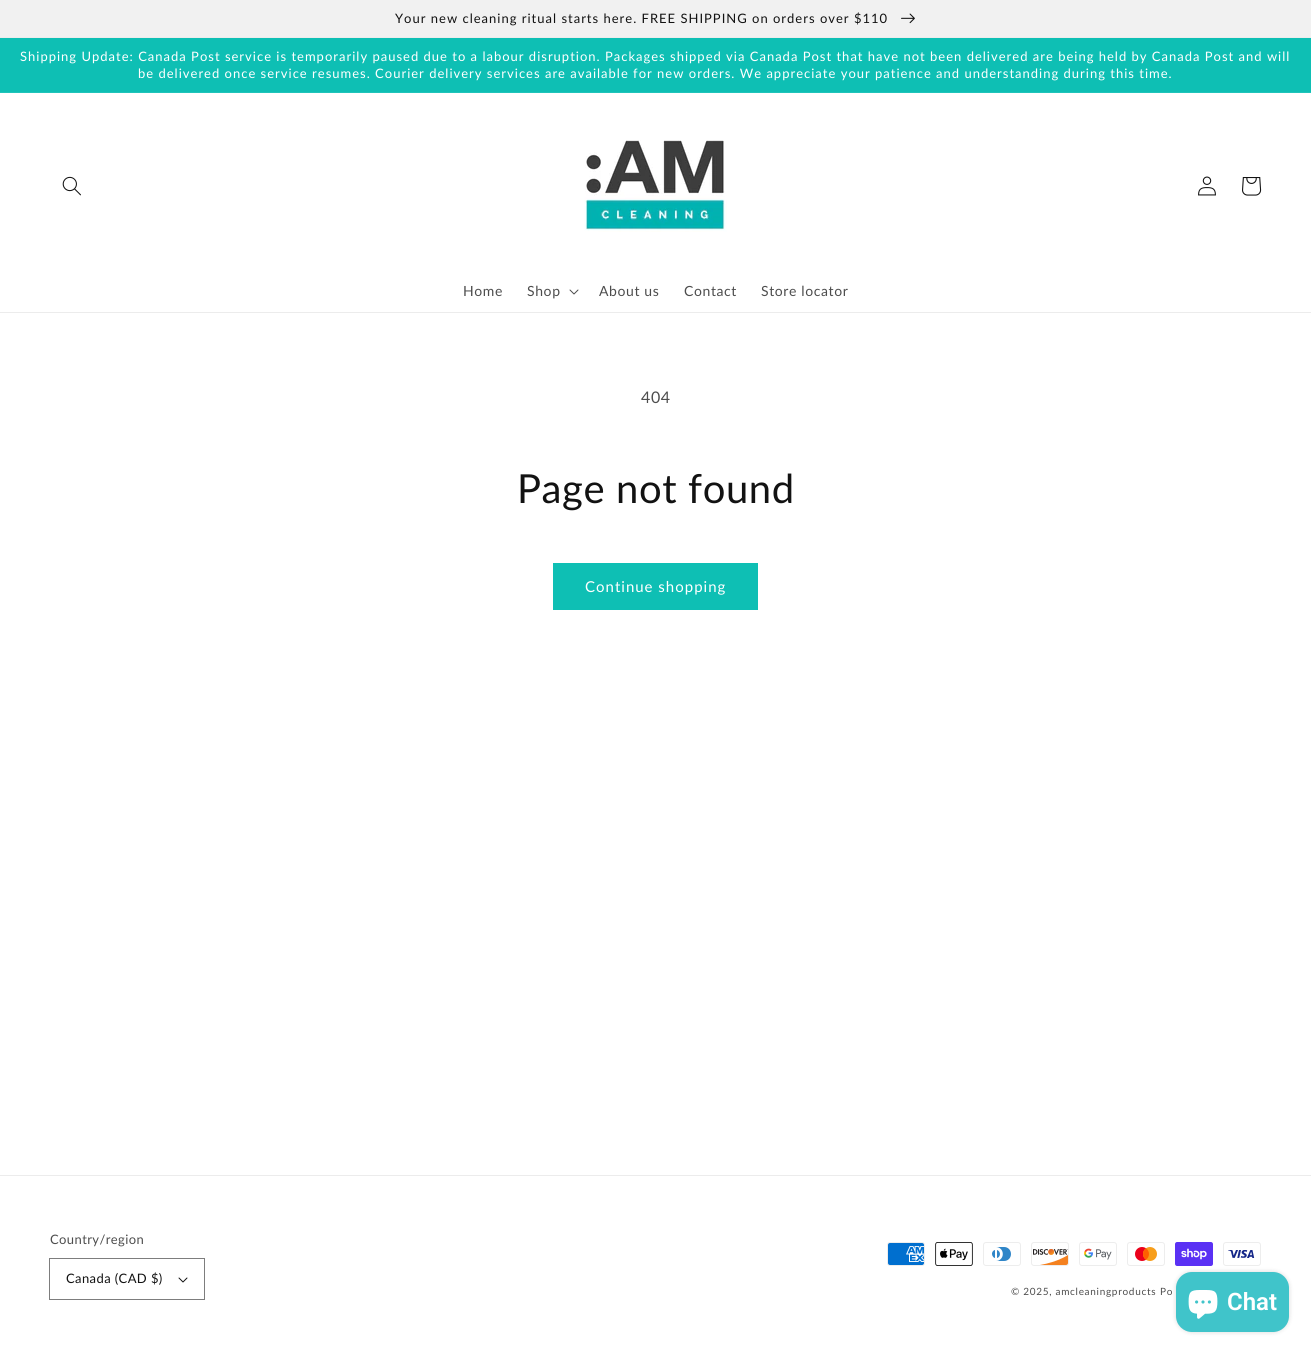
import math
import cairo


def use_color(cr, r, g, b):
  cr.set_source_rgb(r / 255, g / 255, b / 255)

def text(cr, x, y, s, family, size, color, bold=False, italic=False):
  cr.select_font_face(family, cairo.FONT_SLANT_ITALIC if italic else cairo.FONT_SLANT_NORMAL, cairo.FONT_WEIGHT_BOLD if bold else cairo.FONT_WEIGHT_NORMAL)
  cr.set_font_size(size)
  use_color(cr, *color)
  cr.move_to(x, y)
  cr.show_text(s)

def spaced_text(cr, x, y, s, letter, word):
  cr.move_to(x, y)
  for ch in s:
    cr.show_text(ch)
    cr.rel_move_to(letter + word * (ch == ' '), 0)

def box(cr, x, y, w, h, *color):
  use_color(cr, *color)
  cr.rectangle(x, y, w, h)
  cr.fill()

def round_rect(cr, x, y, w, h, r):
  cr.new_sub_path()
  for i, (u, v) in enumerate([(x + w - r, y + h - r), (x + r, y + h - r), (x + r, y + r), (x + w - r, y + r)]):
    cr.arc(u, v, r, i * math.pi / 2, (i + 1) * math.pi / 2)
  cr.close_path()

def shadow(cr, x, y, w, h, r, blur, alpha):
  cr.push_group_with_content(cairo.CONTENT_ALPHA)
  cr.set_operator(cairo.OPERATOR_SOURCE)
  for i in range(15, -16, -2):
    e = blur * i / 6
    if min(w, h) + 2 * e > 0:
      cr.set_source_rgba(0, 0, 0, alpha * math.erfc((i - 1) / 8.5) / 2)
      round_rect(cr, x - e, y - e, w + 2 * e, h + 2 * e, max(0, min(r + e + blur * .6, min(w, h) / 2 + e)))
      cr.fill()
  cr.mask(cr.pop_group())

def picture(cr, path, x, y, w, h):
  cr.save()
  cr.set_source_surface(cairo.ImageSurface.create_from_png(path), x, y)
  cr.rectangle(x, y, w, h)
  cr.fill()
  cr.restore()

def draw(cr):
  use_color(cr, 255, 255, 255)
  cr.paint()
  box(cr, 0, 37, 1311, 1, 236, 236, 236)
  box(cr, 0, 0, 1311, 37, 241, 241, 241)
  picture(cr, "img_01.png", 901, 13, 14, 11)
  box(cr, 0, 38, 1311, 54, 14, 191, 180)
  box(cr, 0, 92, 1311, 1, 33, 196, 186)
  box(cr, 0, 312, 1311, 1, 236, 236, 236)
  picture(cr, "img_02.png", 62, 176, 19, 20)
  picture(cr, "img_03.png", 584, 140, 143, 92)
  picture(cr, "img_04.png", 1198, 176, 18, 20)
  picture(cr, "img_05.png", 1242, 177, 20, 19)
  picture(cr, "img_06.png", 569, 289, 10, 6)
  cr.rectangle(553.5, 563.5, 204, 46)
  use_color(cr, 14, 191, 180)
  cr.set_line_width(1)
  cr.stroke()
  box(cr, 554, 564, 203, 45, 14, 191, 180)
  box(cr, 0, 1175, 1311, 1, 236, 236, 236)
  cr.rectangle(49.5, 1258.5, 155, 41)
  use_color(cr, 125, 125, 125)
  cr.stroke()
  picture(cr, "img_07.png", 178, 1277, 10, 6)
  picture(cr, "img_08.png", 887, 1242, 38, 24)
  picture(cr, "img_09.png", 935, 1242, 38, 24)
  picture(cr, "img_10.png", 983, 1242, 38, 24)
  picture(cr, "img_11.png", 1031, 1242, 38, 24)
  picture(cr, "img_12.png", 1079, 1242, 38, 24)
  picture(cr, "img_13.png", 1127, 1242, 38, 24)
  picture(cr, "img_14.png", 1175, 1242, 38, 24)
  picture(cr, "img_15.png", 1223, 1242, 38, 24)
  use_color(cr, 0, 0, 0)
  shadow(cr, 1176, 1272, 113, 60, 16, 2.5, 0.15)
  use_color(cr, 64, 196, 202)
  round_rect(cr, 1176, 1272, 113, 60, 16)
  cr.fill()
  picture(cr, "img_16.png", 1188, 1290, 30, 29)
  cr.select_font_face("Lato")
  cr.set_font_size(13)
  use_color(cr, 18, 18, 18)
  spaced_text(cr, 395, 23, "Your new cleaning ritual starts here. FREE SHIPPING on orders over $110", 1, 0)
  use_color(cr, 255, 255, 255)
  spaced_text(cr, 20, 61, "Shipping Update: Canada Post service is temporarily paused due to a labour disruption. Packages shipped via Canada Post that have not been delivered are being held by Canada Post and will", 1, 0)
  spaced_text(cr, 138, 78, "be delivered once service resumes. Courier delivery services are available for new orders. We appreciate your patience and understanding during this time.", 1, 0)
  cr.set_font_size(14)
  use_color(cr, 77, 77, 77)
  spaced_text(cr, 463, 296, "Home", 0.6, 0)
  spaced_text(cr, 527, 296, "Shop", 0.6, 0)
  spaced_text(cr, 599, 296, "About us", 0.6, 0)
  spaced_text(cr, 684, 296, "Contact", 0.6, 0)
  spaced_text(cr, 761, 296, "Store locator", 0.6, 0)
  cr.set_font_size(16)
  spaced_text(cr, 641, 403, "404", 0.6, 0)
  cr.set_font_size(40)
  use_color(cr, 18, 18, 18)
  spaced_text(cr, 517, 503, "Page not found", 0.6, 0)
  cr.set_font_size(15)
  use_color(cr, 255, 255, 255)
  spaced_text(cr, 585, 592, "Continue shopping", 1, 0)
  cr.set_font_size(13)
  use_color(cr, 77, 77, 77)
  spaced_text(cr, 50, 1244, "Country/region", 0.4, 0)
  use_color(cr, 18, 18, 18)
  spaced_text(cr, 66, 1283, "Canada (CAD $)", 0.4, 0)
  cr.set_font_size(10)
  use_color(cr, 77, 77, 77)
  spaced_text(cr, 1011, 1295, "© 2025, amcleaningproducts", 0.7, 0)
  spaced_text(cr, 1160, 1295, "Po", 0.7, 0)
  text(cr, 1227, 1310, "Chat", "Roboto SemiBold", 24, (255, 255, 255))


surface = cairo.ImageSurface(cairo.FORMAT_RGB24, 1311, 1353)
cr = cairo.Context(surface)
options = cairo.FontOptions()
options.set_hint_metrics(cairo.HINT_METRICS_OFF)
options.set_hint_style(cairo.HINT_STYLE_NONE)
cr.set_font_options(options)
cr.set_miter_limit(4)
draw(cr)
surface.write_to_png("out.png")
